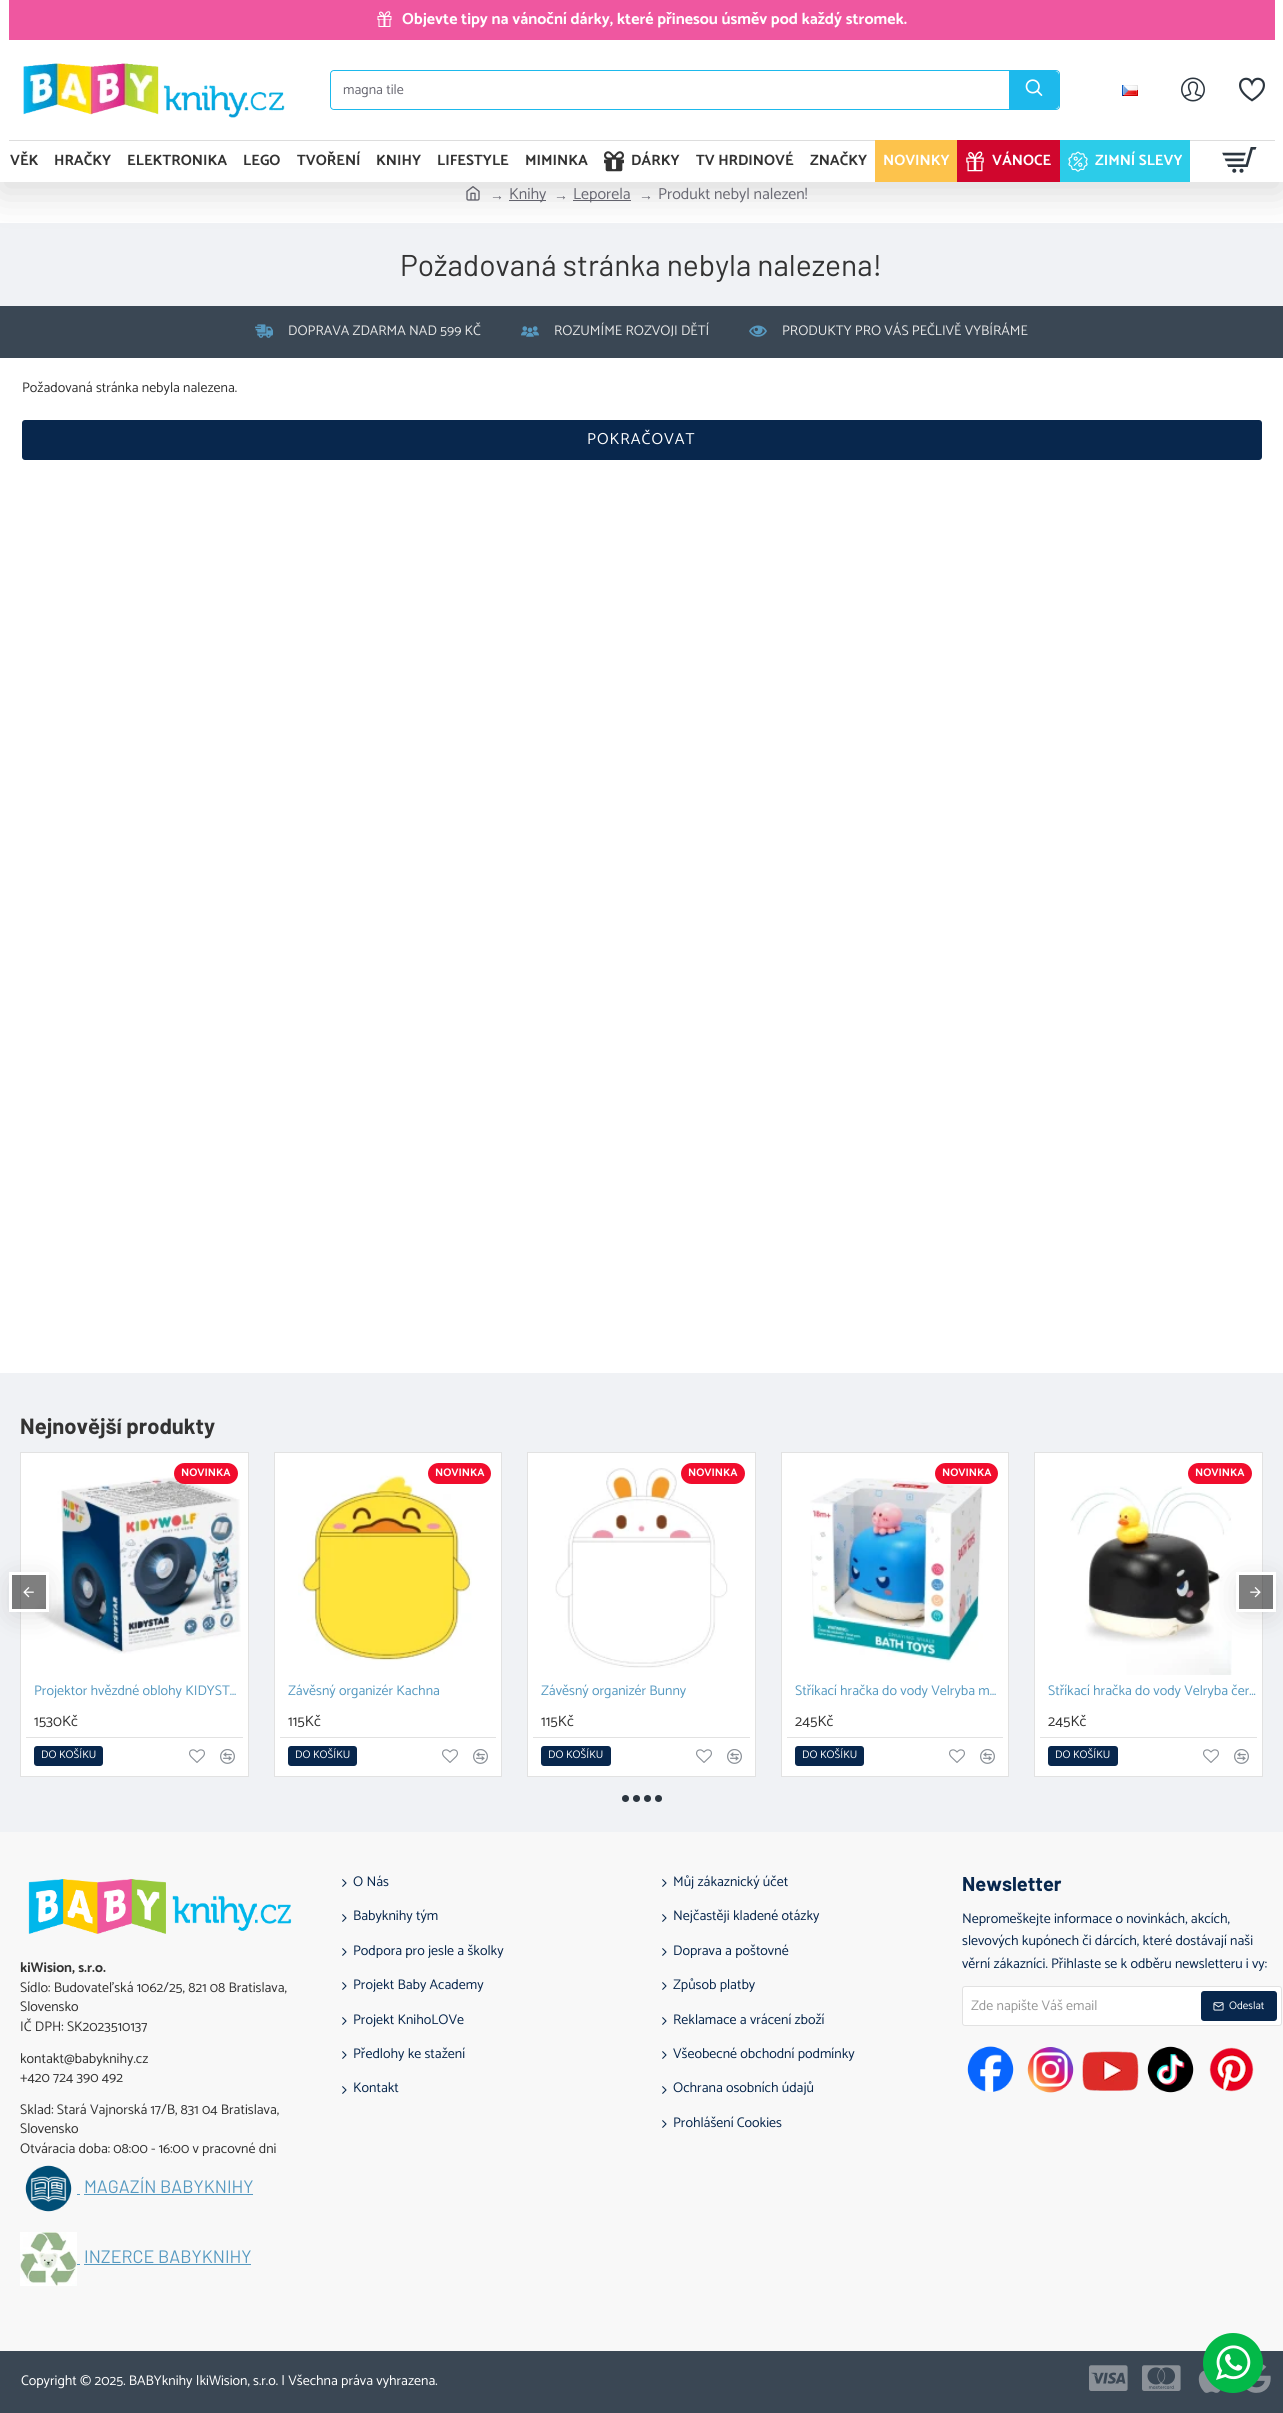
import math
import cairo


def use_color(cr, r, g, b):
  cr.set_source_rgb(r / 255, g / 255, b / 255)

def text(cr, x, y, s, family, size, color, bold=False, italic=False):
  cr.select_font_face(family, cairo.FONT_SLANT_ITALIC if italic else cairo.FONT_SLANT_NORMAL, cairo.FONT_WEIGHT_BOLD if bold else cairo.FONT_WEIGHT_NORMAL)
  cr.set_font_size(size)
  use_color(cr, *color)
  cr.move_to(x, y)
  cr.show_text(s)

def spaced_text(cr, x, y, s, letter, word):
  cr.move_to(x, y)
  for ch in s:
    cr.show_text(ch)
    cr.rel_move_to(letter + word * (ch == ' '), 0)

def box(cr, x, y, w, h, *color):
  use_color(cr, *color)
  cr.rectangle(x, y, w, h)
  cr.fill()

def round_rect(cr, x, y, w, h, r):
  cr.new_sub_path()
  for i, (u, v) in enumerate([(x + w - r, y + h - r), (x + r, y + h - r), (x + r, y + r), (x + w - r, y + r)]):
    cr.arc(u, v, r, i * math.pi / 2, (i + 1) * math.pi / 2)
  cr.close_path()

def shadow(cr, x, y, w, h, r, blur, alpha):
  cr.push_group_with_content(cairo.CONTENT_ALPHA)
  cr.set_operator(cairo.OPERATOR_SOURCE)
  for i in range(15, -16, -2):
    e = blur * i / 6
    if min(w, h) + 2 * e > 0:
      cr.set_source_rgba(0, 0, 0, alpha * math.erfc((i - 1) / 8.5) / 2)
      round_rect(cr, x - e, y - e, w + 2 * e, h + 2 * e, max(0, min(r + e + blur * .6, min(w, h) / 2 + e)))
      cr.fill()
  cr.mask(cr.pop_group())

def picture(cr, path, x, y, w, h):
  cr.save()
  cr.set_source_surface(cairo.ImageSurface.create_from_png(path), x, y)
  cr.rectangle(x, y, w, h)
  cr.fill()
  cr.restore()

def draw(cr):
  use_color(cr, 255, 255, 255)
  cr.paint()
  picture(cr, "img_11.png", 466, 186, 14, 15)
  box(cr, 509, 200, 37, 1, 105, 105, 115)
  box(cr, 573, 200, 58, 1, 105, 105, 115)
  box(cr, 0, 223, 1283, 83, 240, 242, 245)
  use_color(cr, 0, 0, 0)
  shadow(cr, 0, 10, 1283, 182, 0, 20, 0.15)
  box(cr, 0, 0, 1283, 182, 255, 255, 255)
  box(cr, 9, 0, 1266, 40, 239, 87, 160)
  picture(cr, "img_01.png", 377, 11, 15, 16)
  picture(cr, "img_02.png", 23, 63, 262, 55)
  round_rect(cr, 330.5, 70.5, 729, 39, 3.5)
  use_color(cr, 29, 185, 236)
  cr.set_line_width(1)
  cr.stroke()
  use_color(cr, 255, 255, 255)
  round_rect(cr, 331, 71, 678, 38, 4)
  cr.fill()
  use_color(cr, 29, 185, 236)
  cr.new_path()
  cr.move_to(1009, 71)
  cr.line_to(1055, 71)
  cr.curve_to(1057, 71, 1059, 73, 1059, 75)
  cr.line_to(1059, 105)
  cr.curve_to(1059, 107, 1057, 109, 1055, 109)
  cr.line_to(1009, 109)
  cr.close_path()
  cr.fill()
  picture(cr, "img_03.png", 1025, 79, 18, 17)
  picture(cr, "img_04.png", 1122, 85, 16, 11)
  picture(cr, "img_05.png", 1181, 77, 24, 25)
  picture(cr, "img_06.png", 1239, 77, 26, 25)
  box(cr, 9, 140, 1266, 1, 221, 221, 221)
  picture(cr, "img_07.png", 604, 151, 20, 21)
  box(cr, 875, 140, 82, 42, 253, 195, 76)
  box(cr, 957, 140, 103, 42, 208, 6, 45)
  picture(cr, "img_08.png", 966, 151, 18, 21)
  box(cr, 1060, 140, 130, 42, 44, 204, 233)
  picture(cr, "img_09.png", 1068, 151, 20, 21)
  picture(cr, "img_10.png", 1222, 147, 35, 26)
  box(cr, 0, 306, 1283, 52, 58, 71, 84)
  picture(cr, "img_12.png", 255, 324, 18, 14)
  picture(cr, "img_13.png", 521, 326, 18, 11)
  picture(cr, "img_14.png", 749, 325, 18, 12)
  use_color(cr, 8, 39, 77)
  round_rect(cr, 22, 420, 1240, 40, 3)
  cr.fill()
  box(cr, 0, 1373, 1283, 459, 240, 242, 245)
  use_color(cr, 255, 255, 255)
  cr.rectangle(20.5, 1452.5, 228, 324)
  cr.fill_preserve()
  use_color(cr, 226, 226, 226)
  cr.stroke()
  picture(cr, "img_15.png", 35, 1477, 206, 177)
  use_color(cr, 241, 13, 45)
  round_rect(cr, 174, 1463, 64, 21, 10.5)
  cr.fill()
  box(cr, 26, 1737, 217, 1, 226, 226, 226)
  use_color(cr, 8, 39, 77)
  round_rect(cr, 34, 1746, 69, 20, 3)
  cr.fill()
  picture(cr, "img_16.png", 189, 1749, 16, 14)
  picture(cr, "img_17.png", 220, 1749, 15, 15)
  use_color(cr, 255, 255, 255)
  cr.rectangle(274.5, 1452.5, 227, 324)
  cr.fill_preserve()
  use_color(cr, 226, 226, 226)
  cr.stroke()
  picture(cr, "img_18.png", 298, 1475, 174, 186)
  use_color(cr, 241, 13, 45)
  round_rect(cr, 428, 1463, 63, 21, 10.5)
  cr.fill()
  box(cr, 280, 1737, 216, 1, 226, 226, 226)
  use_color(cr, 8, 39, 77)
  round_rect(cr, 288, 1746, 69, 20, 3)
  cr.fill()
  picture(cr, "img_16.png", 442, 1749, 16, 14)
  picture(cr, "img_17.png", 473, 1749, 15, 15)
  use_color(cr, 255, 255, 255)
  cr.rectangle(527.5, 1452.5, 228, 324)
  cr.fill_preserve()
  use_color(cr, 226, 226, 226)
  cr.stroke()
  picture(cr, "img_19.png", 555, 1468, 173, 200)
  use_color(cr, 241, 13, 45)
  round_rect(cr, 681, 1463, 64, 21, 10.5)
  cr.fill()
  box(cr, 533, 1737, 217, 1, 226, 226, 226)
  use_color(cr, 8, 39, 77)
  round_rect(cr, 541, 1746, 70, 20, 3)
  cr.fill()
  picture(cr, "img_16.png", 696, 1749, 16, 14)
  picture(cr, "img_17.png", 727, 1749, 15, 15)
  use_color(cr, 255, 255, 255)
  cr.rectangle(781.5, 1452.5, 227, 324)
  cr.fill_preserve()
  use_color(cr, 226, 226, 226)
  cr.stroke()
  picture(cr, "img_20.png", 810, 1478, 173, 185)
  use_color(cr, 241, 13, 45)
  round_rect(cr, 935, 1463, 63, 21, 10.5)
  cr.fill()
  box(cr, 787, 1737, 216, 1, 226, 226, 226)
  use_color(cr, 8, 39, 77)
  round_rect(cr, 795, 1746, 69, 20, 3)
  cr.fill()
  picture(cr, "img_16.png", 949, 1749, 16, 14)
  picture(cr, "img_17.png", 980, 1749, 15, 15)
  use_color(cr, 255, 255, 255)
  cr.rectangle(1034.5, 1452.5, 228, 324)
  cr.fill_preserve()
  use_color(cr, 226, 226, 226)
  cr.stroke()
  use_color(cr, 241, 13, 45)
  round_rect(cr, 1188, 1463, 64, 21, 10.5)
  cr.fill()
  picture(cr, "img_21.png", 1070, 1486, 162, 189)
  box(cr, 1040, 1737, 217, 1, 226, 226, 226)
  use_color(cr, 8, 39, 77)
  round_rect(cr, 1048, 1746, 70, 20, 3)
  cr.fill()
  picture(cr, "img_16.png", 1203, 1749, 16, 14)
  picture(cr, "img_17.png", 1234, 1749, 15, 15)
  cr.save()
  cr.set_fill_rule(cairo.FILL_RULE_EVEN_ODD)
  cr.new_path()
  cr.move_to(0, 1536)
  cr.line_to(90, 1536)
  cr.line_to(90, 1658)
  cr.line_to(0, 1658)
  cr.close_path()
  cr.move_to(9, 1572)
  cr.line_to(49, 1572)
  cr.line_to(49, 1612)
  cr.line_to(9, 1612)
  cr.close_path()
  cr.clip()
  use_color(cr, 0, 0, 0)
  shadow(cr, 14, 1582, 30, 30, 0, 15, 0.15)
  cr.restore()
  cr.set_source_rgba(0, 0, 0, 0.5)
  cr.rectangle(10.5, 1573.5, 37, 37)
  cr.fill_preserve()
  use_color(cr, 255, 255, 255)
  cr.set_line_width(3)
  cr.stroke()
  picture(cr, "img_22.png", 23, 1587, 11, 11)
  cr.save()
  cr.set_fill_rule(cairo.FILL_RULE_EVEN_ODD)
  cr.new_path()
  cr.move_to(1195, 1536)
  cr.line_to(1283, 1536)
  cr.line_to(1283, 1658)
  cr.line_to(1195, 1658)
  cr.close_path()
  cr.move_to(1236, 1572)
  cr.line_to(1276, 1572)
  cr.line_to(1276, 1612)
  cr.line_to(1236, 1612)
  cr.close_path()
  cr.clip()
  use_color(cr, 0, 0, 0)
  shadow(cr, 1241, 1582, 30, 30, 0, 15, 0.15)
  cr.restore()
  cr.set_source_rgba(0, 0, 0, 0.5)
  cr.rectangle(1237.5, 1573.5, 37, 37)
  cr.fill_preserve()
  use_color(cr, 255, 255, 255)
  cr.stroke()
  picture(cr, "img_23.png", 1250, 1587, 11, 11)
  use_color(cr, 44, 54, 64)
  cr.arc(625.5, 1798.5, 3.5, 0, 2 * math.pi)
  cr.fill()
  cr.arc(636.5, 1798.5, 3.5, 0, 2 * math.pi)
  cr.fill()
  cr.arc(647.5, 1798.5, 3.5, 0, 2 * math.pi)
  cr.fill()
  cr.arc(658.5, 1798.5, 3.5, 0, 2 * math.pi)
  cr.fill()
  box(cr, 0, 1832, 1283, 519, 248, 248, 248)
  picture(cr, "img_24.png", 342, 1879, 5, 8)
  picture(cr, "img_24.png", 342, 1914, 5, 8)
  picture(cr, "img_24.png", 342, 1948, 5, 8)
  picture(cr, "img_24.png", 342, 1982, 5, 8)
  picture(cr, "img_24.png", 342, 2017, 5, 8)
  picture(cr, "img_24.png", 342, 2051, 5, 8)
  picture(cr, "img_24.png", 342, 2086, 5, 8)
  picture(cr, "img_24.png", 662, 1879, 5, 8)
  picture(cr, "img_24.png", 662, 1914, 5, 8)
  picture(cr, "img_24.png", 662, 1948, 5, 8)
  picture(cr, "img_24.png", 662, 1982, 5, 8)
  picture(cr, "img_24.png", 662, 2017, 5, 8)
  picture(cr, "img_24.png", 662, 2051, 5, 8)
  picture(cr, "img_24.png", 662, 2086, 5, 8)
  picture(cr, "img_24.png", 662, 2120, 5, 8)
  use_color(cr, 255, 255, 255)
  round_rect(cr, 962.5, 1986.5, 319, 39, 2.5)
  cr.fill_preserve()
  use_color(cr, 226, 226, 226)
  cr.set_line_width(1)
  cr.stroke()
  use_color(cr, 8, 39, 77)
  round_rect(cr, 1201, 1991, 76, 30, 3)
  cr.fill()
  picture(cr, "img_25.png", 1213, 2002, 11, 9)
  picture(cr, "img_26.png", 967, 2046, 47, 46)
  picture(cr, "img_27.png", 1027, 2047, 47, 46)
  picture(cr, "img_28.png", 1082, 2051, 57, 40)
  picture(cr, "img_29.png", 1147, 2046, 47, 47)
  picture(cr, "img_30.png", 1209, 2047, 45, 45)
  picture(cr, "img_31.png", 28, 1879, 264, 55)
  picture(cr, "img_32.png", 25, 2165, 47, 47)
  box(cr, 77, 2194, 3, 1, 87, 154, 193)
  box(cr, 84, 2194, 169, 1, 87, 154, 193)
  picture(cr, "img_33.png", 20, 2232, 57, 54)
  box(cr, 77, 2264, 3, 1, 87, 154, 193)
  box(cr, 84, 2264, 167, 1, 87, 154, 193)
  box(cr, 0, 2351, 1283, 62, 58, 71, 84)
  picture(cr, "img_34.png", 1089, 2365, 39, 26)
  picture(cr, "img_35.png", 1142, 2365, 39, 26)
  picture(cr, "img_36.png", 1198, 2370, 23, 23)
  picture(cr, "img_37.png", 1246, 2364, 25, 29)
  use_color(cr, 3, 185, 72)
  cr.arc(1233, 2363, 30, 0, 2 * math.pi)
  cr.fill()
  picture(cr, "img_38.png", 1216, 2345, 35, 35)
  text(cr, 402, 24, "Objevte tipy na vánoční dárky, které přinesou úsměv pod každý stromek.", "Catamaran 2 Thin", 16, (255, 255, 255))
  text(cr, 343, 94, "magna tile", "Catamaran Thin", 14, (105, 105, 115))
  text(cr, 10, 165, "VĚK", "Catamaran 2 Thin", 15, (51, 51, 51))
  text(cr, 54, 165, "HRAČKY", "Catamaran 2 Thin", 15, (51, 51, 51))
  text(cr, 127, 165, "ELEKTRONIKA", "Catamaran 2 Thin", 15, (51, 51, 51))
  text(cr, 243, 165, "LEGO", "Catamaran 2 Thin", 15, (51, 51, 51))
  text(cr, 297, 165, "TVOŘENÍ", "Catamaran 2 Thin", 15, (51, 51, 51))
  text(cr, 376, 165, "KNIHY", "Catamaran 2 Thin", 15, (51, 51, 51))
  text(cr, 437, 165, "LIFESTYLE", "Catamaran 2 Thin", 15, (51, 51, 51))
  text(cr, 525, 165, "MIMINKA", "Catamaran 2 Thin", 15, (51, 51, 51))
  text(cr, 631, 165, "DÁRKY", "Catamaran 2 Thin", 15, (51, 51, 51))
  text(cr, 696, 165, "TV HRDINOVÉ", "Catamaran 2 Thin", 15, (51, 51, 51))
  text(cr, 810, 165, "ZNAČKY", "Catamaran 2 Thin", 15, (51, 51, 51))
  text(cr, 883, 165, "NOVINKY", "Catamaran 2 Thin", 15, (255, 255, 255))
  text(cr, 992, 165, "VÁNOCE", "Catamaran 2 Thin", 15, (255, 255, 255))
  text(cr, 1095, 165, "ZIMNÍ SLEVY", "Catamaran 2 Thin", 15, (255, 255, 255))
  text(cr, 490, 200, "→", "Liberation Serif", 14, (105, 105, 115))
  text(cr, 509, 199, "Knihy", "Catamaran Thin", 16, (105, 105, 115))
  text(cr, 554, 200, "→", "Liberation Serif", 14, (105, 105, 115))
  text(cr, 573, 199, "Leporela", "Catamaran Thin", 16, (105, 105, 115))
  text(cr, 639, 200, "→", "Liberation Serif", 14, (105, 105, 115))
  text(cr, 658, 199, "Produkt nebyl nalezen!", "Catamaran Thin", 16, (105, 105, 115))
  text(cr, 400, 276, "Požadovaná stránka nebyla nalezena!", "Barlow", 30, (51, 51, 51))
  text(cr, 288, 335, "DOPRAVA ZDARMA NAD 599 KČ", "Catamaran Thin", 14, (230, 230, 230))
  text(cr, 554, 335, "ROZUMÍME ROZVOJI DĚTÍ", "Catamaran Thin", 14, (230, 230, 230))
  text(cr, 782, 335, "PRODUKTY PRO VÁS PEČLIVĚ VYBÍRÁME", "Catamaran Thin", 14, (230, 230, 230))
  text(cr, 22, 392, "Požadovaná stránka nebyla nalezena.", "Catamaran Thin", 14, (51, 51, 51))
  cr.set_font_size(16)
  use_color(cr, 255, 255, 255)
  spaced_text(cr, 587, 444, "POKRAČOVAT", 1, 0)
  text(cr, 20, 1434, "Nejnovější produkty", "Barlow", 22, (51, 51, 51), bold=True)
  text(cr, 181, 1476, "NOVINKA", "Catamaran 2 Thin", 11, (255, 255, 255))
  text(cr, 34, 1695, "Projektor hvězdné oblohy KIDYST…", "Catamaran Thin", 14, (87, 154, 193))
  text(cr, 34, 1726, "1530Kč", "Catamaran Thin", 15, (51, 51, 51))
  text(cr, 41, 1758, "DO KOŠÍKU", "Catamaran Thin", 11, (255, 255, 255))
  text(cr, 435, 1476, "NOVINKA", "Catamaran 2 Thin", 11, (255, 255, 255))
  text(cr, 288, 1695, "Závěsný organizér Kachna", "Catamaran Thin", 14, (87, 154, 193))
  text(cr, 288, 1726, "115Kč", "Catamaran Thin", 15, (51, 51, 51))
  text(cr, 295, 1758, "DO KOŠÍKU", "Catamaran Thin", 11, (255, 255, 255))
  text(cr, 688, 1476, "NOVINKA", "Catamaran 2 Thin", 11, (255, 255, 255))
  text(cr, 541, 1695, "Závěsný organizér Bunny", "Catamaran Thin", 14, (87, 154, 193))
  text(cr, 541, 1726, "115Kč", "Catamaran Thin", 15, (51, 51, 51))
  text(cr, 548, 1758, "DO KOŠÍKU", "Catamaran Thin", 11, (255, 255, 255))
  text(cr, 942, 1476, "NOVINKA", "Catamaran 2 Thin", 11, (255, 255, 255))
  text(cr, 795, 1695, "Stříkací hračka do vody Velryba m…", "Catamaran Thin", 14, (87, 154, 193))
  text(cr, 795, 1726, "245Kč", "Catamaran Thin", 15, (51, 51, 51))
  text(cr, 802, 1758, "DO KOŠÍKU", "Catamaran Thin", 11, (255, 255, 255))
  text(cr, 1195, 1476, "NOVINKA", "Catamaran 2 Thin", 11, (255, 255, 255))
  text(cr, 1048, 1695, "Stříkací hračka do vody Velryba čer…", "Catamaran Thin", 14, (87, 154, 193))
  text(cr, 1048, 1726, "245Kč", "Catamaran Thin", 15, (51, 51, 51))
  text(cr, 1055, 1758, "DO KOŠÍKU", "Catamaran Thin", 11, (255, 255, 255))
  text(cr, 353, 1886, "O Nás", "Catamaran Thin", 14, (8, 39, 77))
  text(cr, 353, 1920, "Babyknihy tým", "Catamaran Thin", 14, (8, 39, 77))
  text(cr, 353, 1955, "Podpora pro jesle a školky", "Catamaran Thin", 14, (8, 39, 77))
  text(cr, 353, 1989, "Projekt Baby Academy", "Catamaran Thin", 14, (8, 39, 77))
  text(cr, 353, 2024, "Projekt KnihoLOVe", "Catamaran Thin", 14, (8, 39, 77))
  text(cr, 353, 2058, "Předlohy ke stažení", "Catamaran Thin", 14, (8, 39, 77))
  text(cr, 353, 2092, "Kontakt", "Catamaran Thin", 14, (8, 39, 77))
  text(cr, 673, 1886, "Můj zákaznický účet", "Catamaran Thin", 14, (8, 39, 77))
  text(cr, 673, 1920, "Nejčastěji kladené otázky", "Catamaran Thin", 14, (8, 39, 77))
  text(cr, 673, 1955, "Doprava a poštovné", "Catamaran Thin", 14, (8, 39, 77))
  text(cr, 673, 1989, "Způsob platby", "Catamaran Thin", 14, (8, 39, 77))
  text(cr, 673, 2024, "Reklamace a vrácení zboží", "Catamaran Thin", 14, (8, 39, 77))
  text(cr, 673, 2058, "Všeobecné obchodní podmínky", "Catamaran Thin", 14, (8, 39, 77))
  text(cr, 673, 2092, "Ochrana osobních údajů", "Catamaran Thin", 14, (8, 39, 77))
  text(cr, 673, 2127, "Prohlášení Cookies", "Catamaran Thin", 14, (8, 39, 77))
  text(cr, 962, 1891, "Newsletter", "Barlow", 20, (8, 39, 77), bold=True)
  text(cr, 962, 1923, "Nepromeškejte informace o novinkách, akcích,", "Catamaran Thin", 14, (8, 39, 77))
  text(cr, 962, 1945, "slevových kupónech či dárcích, které dostávají naši", "Catamaran Thin", 14, (8, 39, 77))
  text(cr, 962, 1968, "věrní zákazníci. Přihlaste se k odběru newsletteru i vy:", "Catamaran Thin", 14, (8, 39, 77))
  text(cr, 971, 2010, "Zde napište Váš email", "Catamaran Thin", 14, (153, 153, 153))
  text(cr, 1229, 2009, "Odeslat", "Catamaran Thin", 11, (255, 255, 255))
  text(cr, 20, 1972, "kiWision, s.r.o.", "Catamaran 2 Thin", 14, (51, 51, 51))
  text(cr, 20, 1992, "Sídlo: Budovateľská 1062/25, 821 08 Bratislava,", "Catamaran Thin", 14, (51, 51, 51))
  text(cr, 20, 2011, "Slovensko", "Catamaran Thin", 14, (51, 51, 51))
  text(cr, 20, 2031, "IČ DPH: SK2023510137", "Catamaran Thin", 14, (51, 51, 51))
  text(cr, 20, 2063, "kontakt@babyknihy.cz", "Catamaran Thin", 14, (51, 51, 51))
  text(cr, 20, 2082, "+420 724 390 492", "Catamaran Thin", 14, (51, 51, 51))
  text(cr, 20, 2114, "Sklad: Stará Vajnorská 17/B, 831 04 Bratislava,", "Catamaran Thin", 14, (51, 51, 51))
  text(cr, 20, 2133, "Slovensko", "Catamaran Thin", 14, (51, 51, 51))
  text(cr, 20, 2153, "Otváracia doba: 08:00 - 16:00 v pracovné dni", "Catamaran Thin", 14, (51, 51, 51))
  text(cr, 84, 2193, "MAGAZÍN BABYKNIHY", "Barlow", 18, (87, 154, 193))
  text(cr, 84, 2263, "INZERCE BABYKNIHY", "Barlow", 18, (87, 154, 193))
  text(cr, 21, 2385, "Copyright © 2025. BABYknihy |kiWision, s.r.o. | Všechna práva vyhrazena.", "Catamaran Thin", 14, (255, 255, 255))


surface = cairo.ImageSurface(cairo.FORMAT_RGB24, 1283, 2413)
cr = cairo.Context(surface)
options = cairo.FontOptions()
options.set_hint_metrics(cairo.HINT_METRICS_OFF)
options.set_hint_style(cairo.HINT_STYLE_NONE)
cr.set_font_options(options)
cr.set_miter_limit(4)
draw(cr)
surface.write_to_png("out.png")
